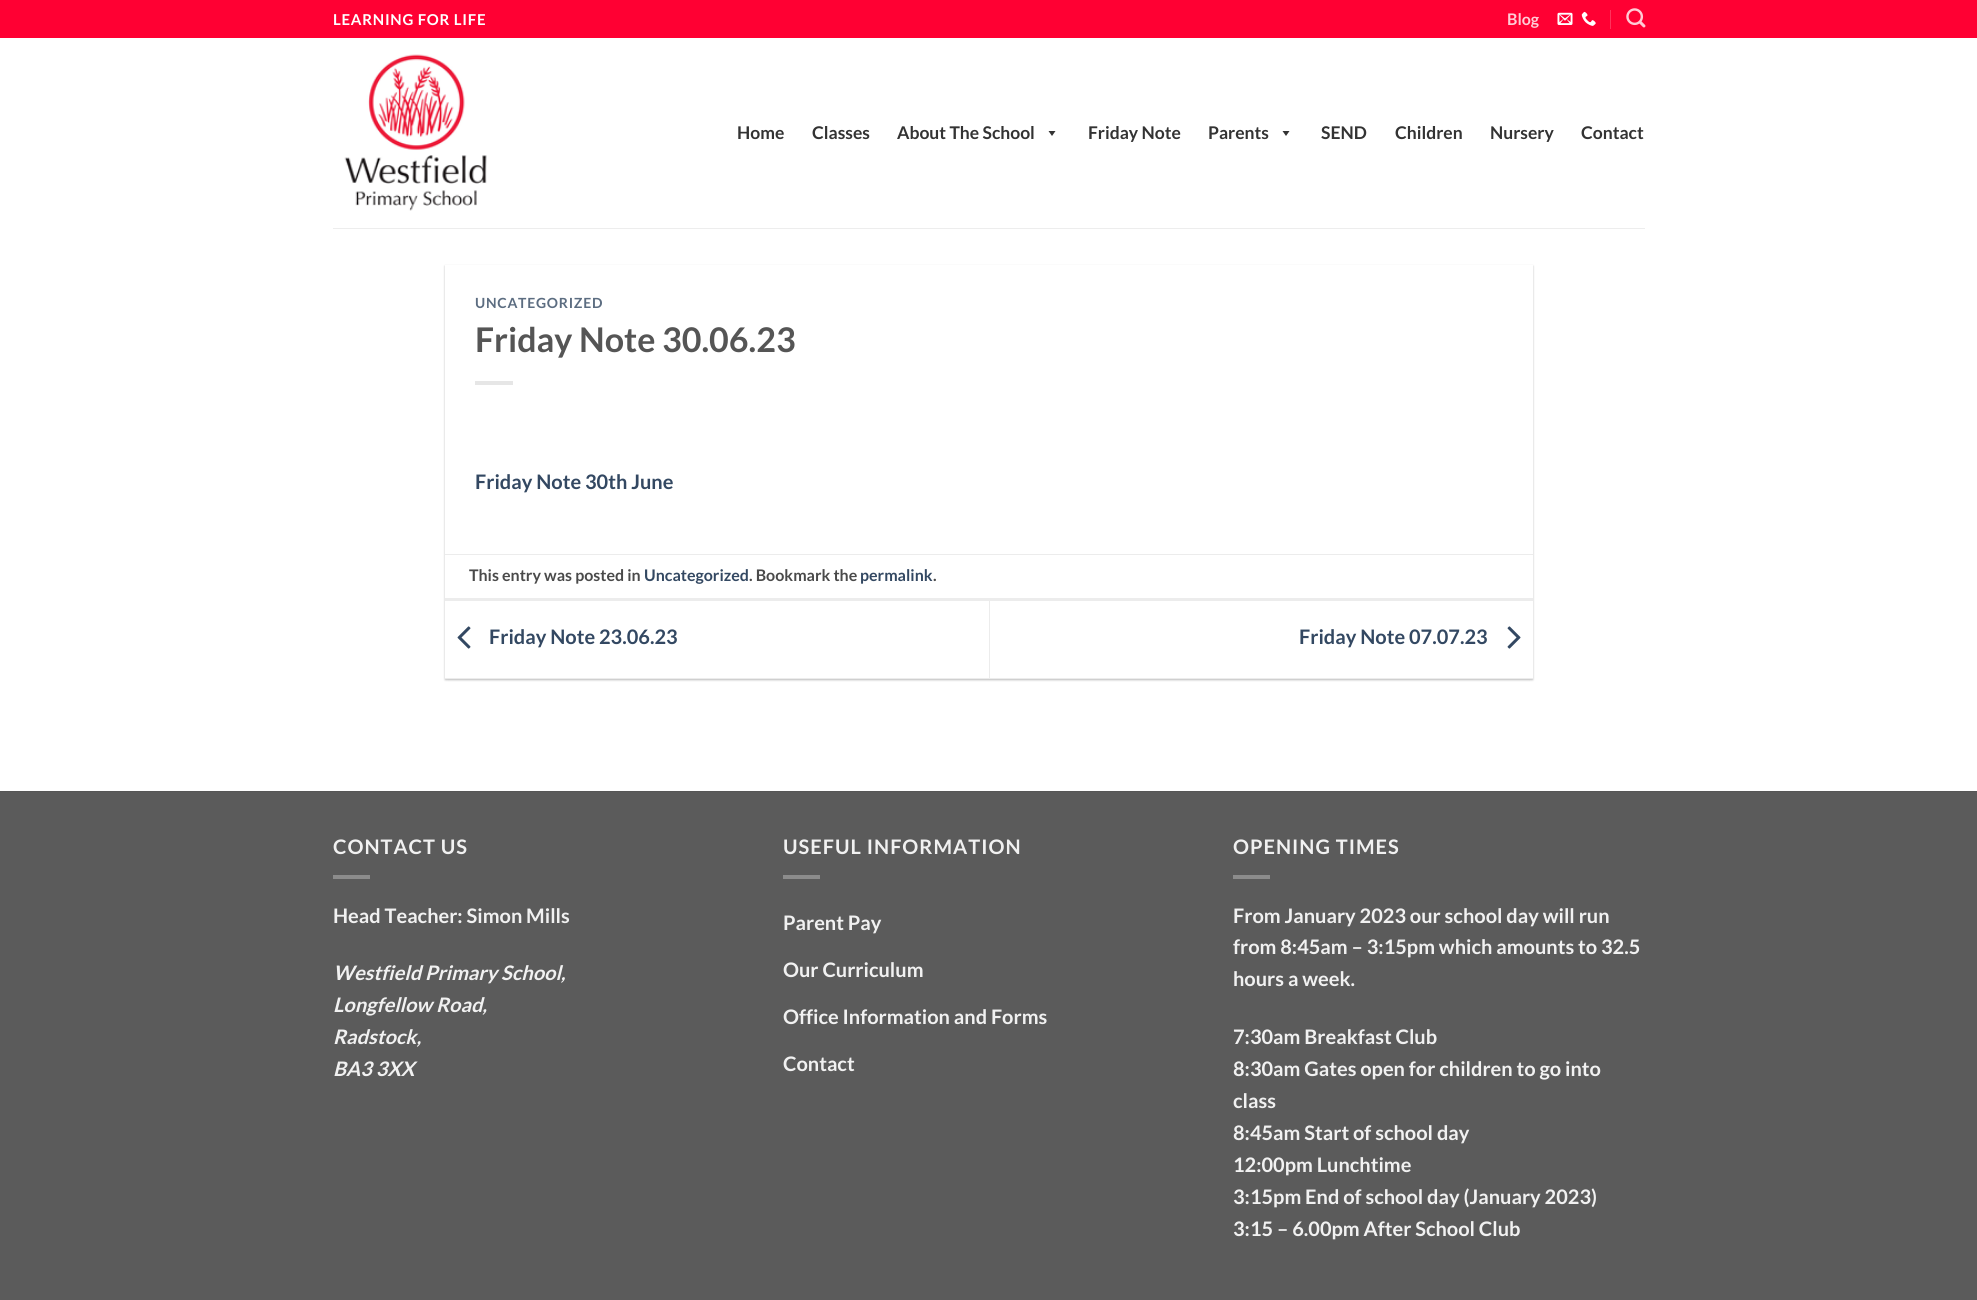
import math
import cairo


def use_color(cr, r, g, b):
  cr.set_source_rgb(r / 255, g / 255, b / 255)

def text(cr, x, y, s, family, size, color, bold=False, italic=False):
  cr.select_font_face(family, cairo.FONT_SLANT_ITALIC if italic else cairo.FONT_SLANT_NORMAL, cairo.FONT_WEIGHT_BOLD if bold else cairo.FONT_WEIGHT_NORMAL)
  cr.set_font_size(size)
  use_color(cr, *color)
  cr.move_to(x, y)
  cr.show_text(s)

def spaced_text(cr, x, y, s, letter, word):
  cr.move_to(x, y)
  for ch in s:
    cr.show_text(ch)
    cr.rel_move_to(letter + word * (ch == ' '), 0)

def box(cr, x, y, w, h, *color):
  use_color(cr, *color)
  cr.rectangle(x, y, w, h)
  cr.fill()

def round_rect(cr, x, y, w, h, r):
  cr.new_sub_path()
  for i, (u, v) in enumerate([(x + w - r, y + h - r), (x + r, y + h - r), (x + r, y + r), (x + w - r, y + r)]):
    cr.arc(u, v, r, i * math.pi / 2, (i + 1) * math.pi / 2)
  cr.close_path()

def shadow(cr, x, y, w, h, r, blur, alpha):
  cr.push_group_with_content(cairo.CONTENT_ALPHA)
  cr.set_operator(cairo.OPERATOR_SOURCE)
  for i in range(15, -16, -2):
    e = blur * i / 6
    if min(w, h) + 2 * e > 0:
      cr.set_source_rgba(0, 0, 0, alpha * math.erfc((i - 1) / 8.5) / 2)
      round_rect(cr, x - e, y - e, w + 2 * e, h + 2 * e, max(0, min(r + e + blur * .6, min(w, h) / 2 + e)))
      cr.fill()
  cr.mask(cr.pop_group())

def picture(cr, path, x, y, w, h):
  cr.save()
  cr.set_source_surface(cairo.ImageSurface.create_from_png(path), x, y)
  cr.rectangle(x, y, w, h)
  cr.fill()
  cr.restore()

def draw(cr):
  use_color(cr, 255, 255, 255)
  cr.paint()
  box(cr, 0, 0, 1977, 38, 255, 0, 51)
  picture(cr, "img_01.png", 1557, 12, 16, 13)
  picture(cr, "img_02.png", 1581, 11, 15, 15)
  box(cr, 1610, 10, 1, 19, 255, 51, 92)
  picture(cr, "img_03.png", 1626, 8, 20, 20)
  picture(cr, "img_04.png", 344, 54, 143, 157)
  use_color(cr, 51, 51, 51)
  cr.new_path()
  cr.move_to(1055.5, 131)
  cr.line_to(1052, 136)
  cr.line_to(1048.5, 131)
  cr.close_path()
  cr.fill()
  cr.new_path()
  cr.move_to(1289.5, 131)
  cr.line_to(1286, 136)
  cr.line_to(1282.5, 131)
  cr.close_path()
  cr.fill()
  box(cr, 333, 228, 1312, 1, 237, 237, 237)
  use_color(cr, 0, 0, 0)
  shadow(cr, 445, 266, 1088, 414, 0, 1, 0.24)
  shadow(cr, 448, 269, 1082, 409, 0, 2, 0.12)
  box(cr, 445, 265, 1088, 413, 255, 255, 255)
  box(cr, 475, 381, 38, 4, 230, 230, 230)
  box(cr, 445, 554, 1088, 1, 236, 236, 236)
  box(cr, 445, 598, 1088, 3, 236, 236, 236)
  box(cr, 445, 678, 1088, 1, 236, 236, 236)
  picture(cr, "img_05.png", 457, 626, 14, 23)
  box(cr, 989, 601, 1, 77, 236, 236, 236)
  picture(cr, "img_06.png", 1507, 626, 14, 23)
  box(cr, 0, 792, 1977, 508, 91, 91, 91)
  box(cr, 0, 791, 1977, 1, 86, 86, 86)
  box(cr, 333, 875, 37, 4, 140, 140, 140)
  box(cr, 783, 875, 37, 4, 140, 140, 140)
  box(cr, 1233, 875, 37, 4, 140, 140, 140)
  cr.select_font_face("Lato", cairo.FONT_SLANT_NORMAL, cairo.FONT_WEIGHT_BOLD)
  cr.set_font_size(15)
  use_color(cr, 255, 255, 255)
  spaced_text(cr, 333, 25, "LEARNING FOR LIFE", 0.75, 0)
  text(cr, 1507, 25, "Blog", "Lato", 16, (255, 204, 214), bold=True)
  text(cr, 737, 139, "Home", "Lato", 17.5, (51, 51, 51), bold=True)
  text(cr, 812, 139, "Classes", "Lato", 17.5, (51, 51, 51), bold=True)
  text(cr, 897, 139, "About The School", "Lato", 17.5, (51, 51, 51), bold=True)
  text(cr, 1088, 139, "Friday Note", "Lato", 17.5, (51, 51, 51), bold=True)
  text(cr, 1208, 139, "Parents", "Lato", 17.5, (51, 51, 51), bold=True)
  text(cr, 1321, 139, "SEND", "Lato", 17.5, (51, 51, 51), bold=True)
  text(cr, 1395, 139, "Children", "Lato", 17.5, (51, 51, 51), bold=True)
  text(cr, 1490, 139, "Nursery", "Lato", 17.5, (51, 51, 51), bold=True)
  text(cr, 1581, 139, "Contact", "Lato", 17.5, (51, 51, 51), bold=True)
  cr.set_font_size(14)
  use_color(cr, 92, 109, 129)
  spaced_text(cr, 475, 308, "UNCATEGORIZED", 0.75, 0)
  text(cr, 475, 352, "Friday Note 30.06.23", "Lato", 34, (85, 85, 85), bold=True)
  text(cr, 475, 489, "Friday Note 30th June", "Lato", 20, (51, 72, 98), bold=True)
  text(cr, 469, 581, "This entry was posted in", "Lato", 16, (74, 74, 74), bold=True)
  text(cr, 644, 581, "Uncategorized", "Lato", 16, (51, 72, 98), bold=True)
  text(cr, 749, 581, ". Bookmark the", "Lato", 16, (74, 74, 74), bold=True)
  text(cr, 860, 581, "permalink", "Lato", 16, (51, 72, 98), bold=True)
  text(cr, 933, 581, ".", "Lato", 16, (74, 74, 74), bold=True)
  text(cr, 489, 644, "Friday Note 23.06.23", "Lato", 20, (51, 72, 98), bold=True)
  text(cr, 1299, 644, "Friday Note 07.07.23", "Lato", 20, (51, 72, 98), bold=True)
  use_color(cr, 241, 241, 241)
  spaced_text(cr, 333, 854, "CONTACT US", 1, 0)
  text(cr, 333, 923, "Head Teacher: Simon Mills", "Lato", 20, (241, 241, 241), bold=True)
  text(cr, 333, 980, "Westfield Primary School,", "Lato", 20, (241, 241, 241), bold=True, italic=True)
  text(cr, 333, 1012, "Longfellow Road,", "Lato", 20, (241, 241, 241), bold=True, italic=True)
  text(cr, 333, 1044, "Radstock,", "Lato", 20, (241, 241, 241), bold=True, italic=True)
  text(cr, 333, 1076, "BA3 3XX", "Lato", 20, (241, 241, 241), bold=True, italic=True)
  cr.select_font_face("Lato", cairo.FONT_SLANT_NORMAL, cairo.FONT_WEIGHT_BOLD)
  spaced_text(cr, 783, 854, "USEFUL INFORMATION", 1, 0)
  text(cr, 783, 930, "Parent Pay", "Lato", 20, (241, 241, 241), bold=True)
  text(cr, 783, 977, "Our Curriculum", "Lato", 20, (241, 241, 241), bold=True)
  text(cr, 783, 1024, "Office Information and Forms", "Lato", 20, (241, 241, 241), bold=True)
  text(cr, 783, 1071, "Contact", "Lato", 20, (241, 241, 241), bold=True)
  spaced_text(cr, 1233, 854, "OPENING TIMES", 1, 0)
  text(cr, 1233, 923, "From January 2023 our school day will run", "Lato", 20, (241, 241, 241), bold=True)
  text(cr, 1233, 954, "from 8:45am – 3:15pm which amounts to 32.5", "Lato", 20, (241, 241, 241), bold=True)
  text(cr, 1233, 986, "hours a week.", "Lato", 20, (241, 241, 241), bold=True)
  text(cr, 1233, 1044, "7:30am Breakfast Club", "Lato", 20, (241, 241, 241), bold=True)
  text(cr, 1233, 1076, "8:30am Gates open for children to go into", "Lato", 20, (241, 241, 241), bold=True)
  text(cr, 1233, 1108, "class", "Lato", 20, (241, 241, 241), bold=True)
  text(cr, 1233, 1140, "8:45am Start of school day", "Lato", 20, (241, 241, 241), bold=True)
  text(cr, 1233, 1172, "12:00pm Lunchtime", "Lato", 20, (241, 241, 241), bold=True)
  text(cr, 1233, 1204, "3:15pm End of school day (January 2023)", "Lato", 20, (241, 241, 241), bold=True)
  text(cr, 1233, 1236, "3:15 – 6.00pm After School Club", "Lato", 20, (241, 241, 241), bold=True)


surface = cairo.ImageSurface(cairo.FORMAT_RGB24, 1977, 1300)
cr = cairo.Context(surface)
options = cairo.FontOptions()
options.set_hint_metrics(cairo.HINT_METRICS_OFF)
options.set_hint_style(cairo.HINT_STYLE_NONE)
cr.set_font_options(options)
cr.set_miter_limit(4)
draw(cr)
surface.write_to_png("out.png")
